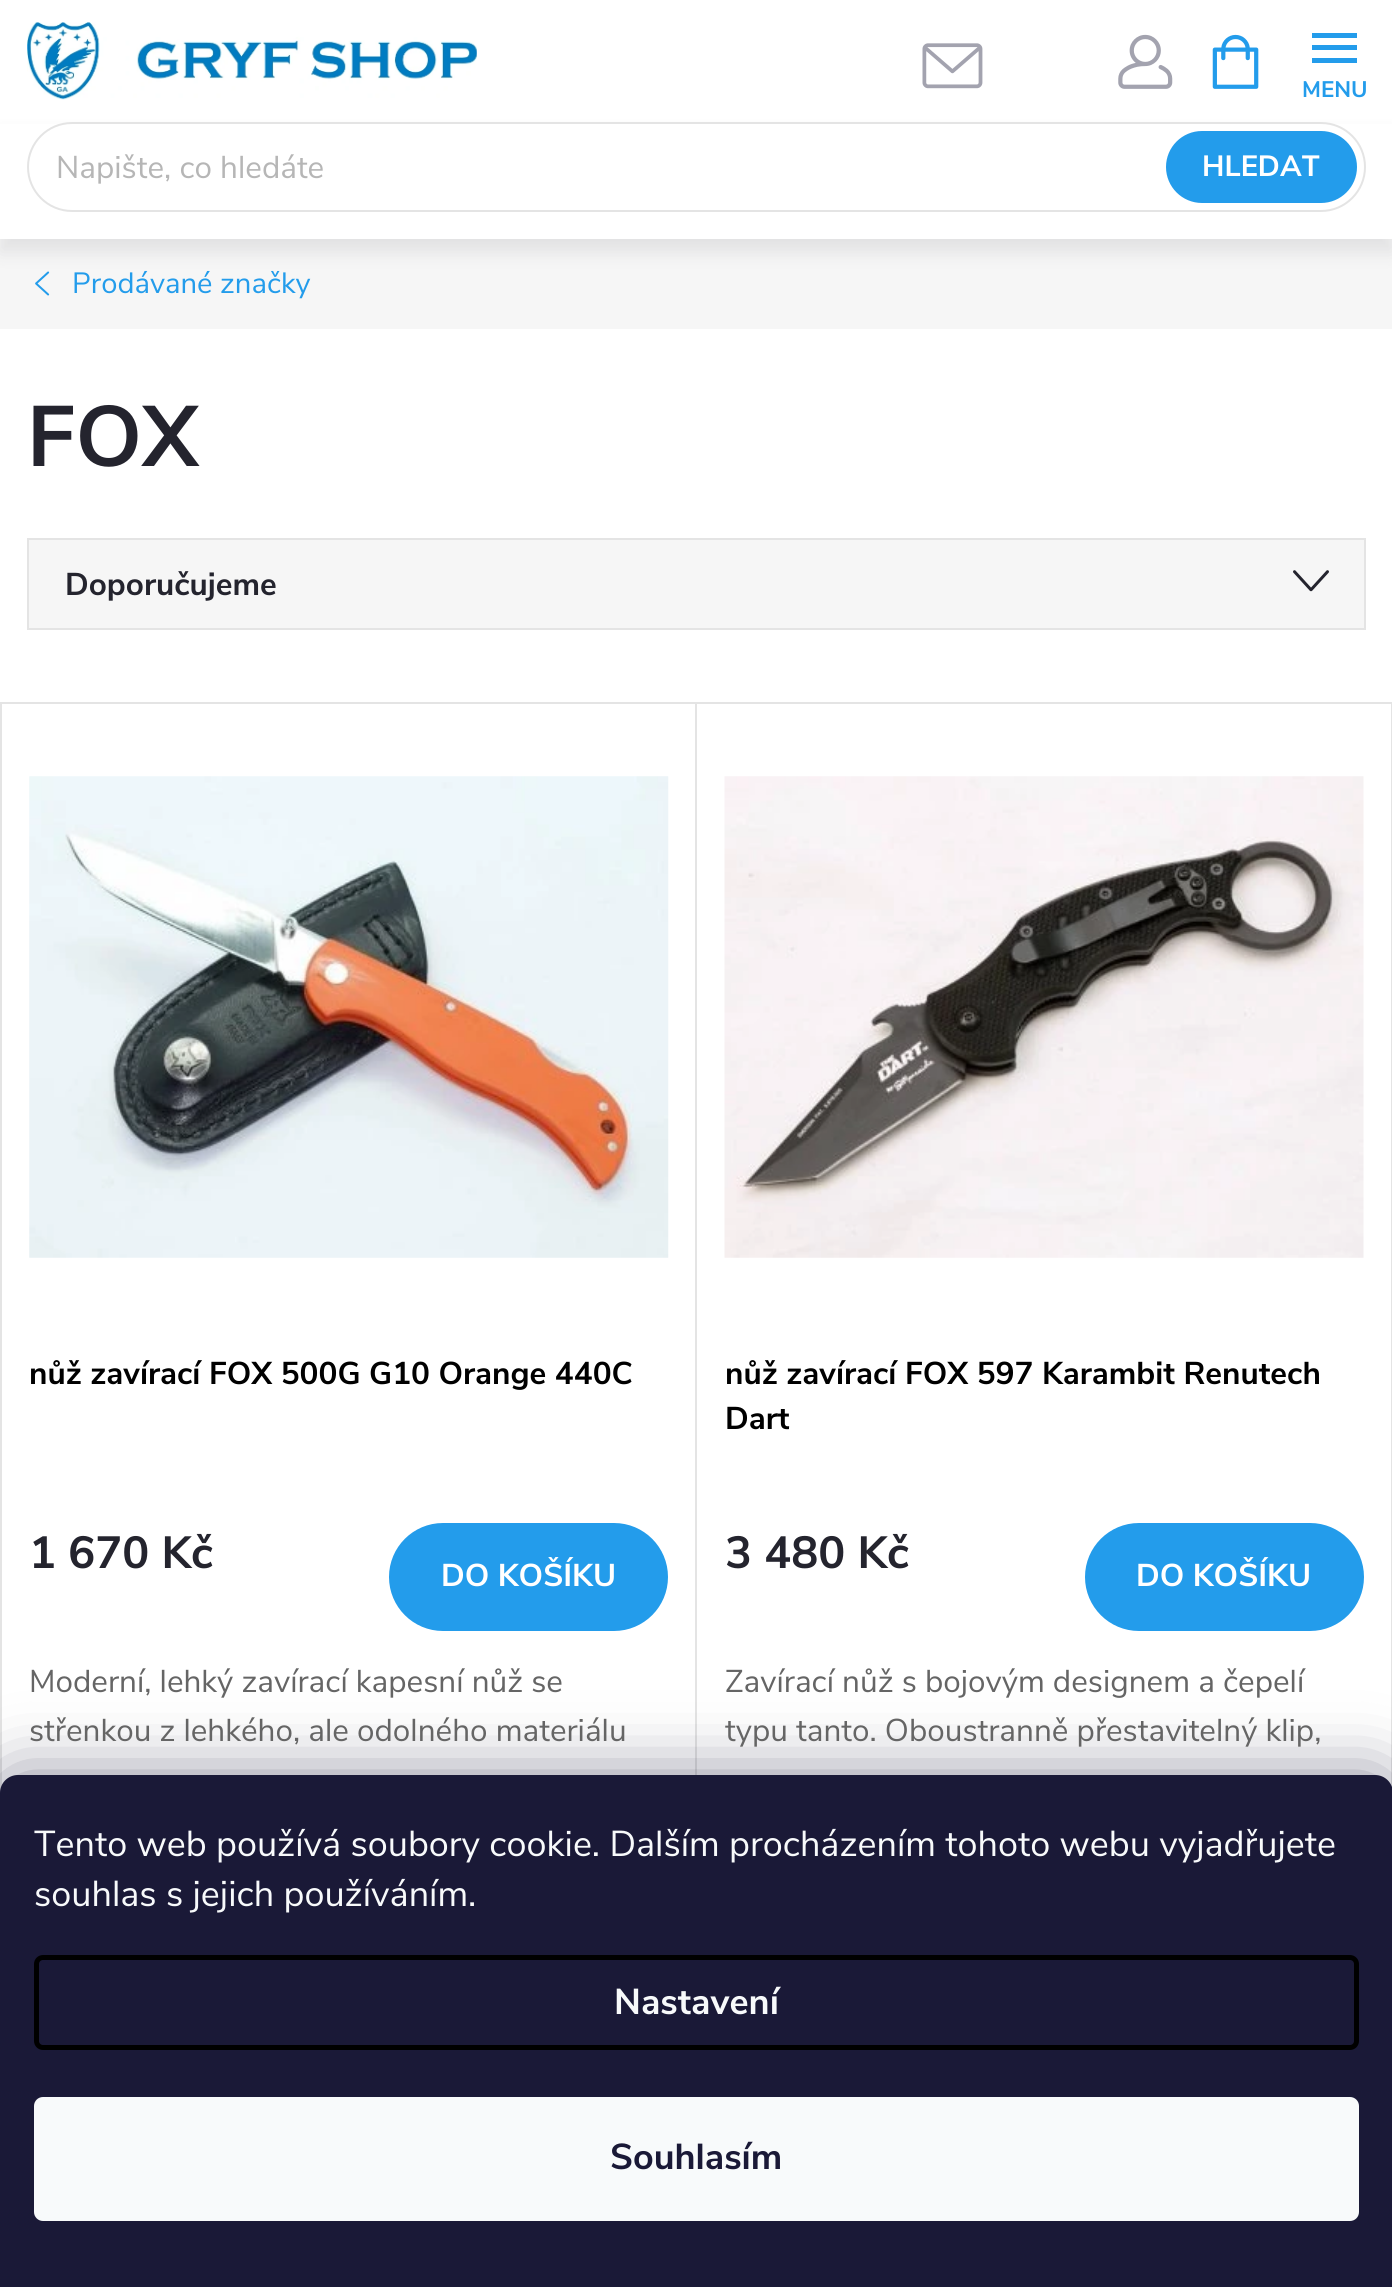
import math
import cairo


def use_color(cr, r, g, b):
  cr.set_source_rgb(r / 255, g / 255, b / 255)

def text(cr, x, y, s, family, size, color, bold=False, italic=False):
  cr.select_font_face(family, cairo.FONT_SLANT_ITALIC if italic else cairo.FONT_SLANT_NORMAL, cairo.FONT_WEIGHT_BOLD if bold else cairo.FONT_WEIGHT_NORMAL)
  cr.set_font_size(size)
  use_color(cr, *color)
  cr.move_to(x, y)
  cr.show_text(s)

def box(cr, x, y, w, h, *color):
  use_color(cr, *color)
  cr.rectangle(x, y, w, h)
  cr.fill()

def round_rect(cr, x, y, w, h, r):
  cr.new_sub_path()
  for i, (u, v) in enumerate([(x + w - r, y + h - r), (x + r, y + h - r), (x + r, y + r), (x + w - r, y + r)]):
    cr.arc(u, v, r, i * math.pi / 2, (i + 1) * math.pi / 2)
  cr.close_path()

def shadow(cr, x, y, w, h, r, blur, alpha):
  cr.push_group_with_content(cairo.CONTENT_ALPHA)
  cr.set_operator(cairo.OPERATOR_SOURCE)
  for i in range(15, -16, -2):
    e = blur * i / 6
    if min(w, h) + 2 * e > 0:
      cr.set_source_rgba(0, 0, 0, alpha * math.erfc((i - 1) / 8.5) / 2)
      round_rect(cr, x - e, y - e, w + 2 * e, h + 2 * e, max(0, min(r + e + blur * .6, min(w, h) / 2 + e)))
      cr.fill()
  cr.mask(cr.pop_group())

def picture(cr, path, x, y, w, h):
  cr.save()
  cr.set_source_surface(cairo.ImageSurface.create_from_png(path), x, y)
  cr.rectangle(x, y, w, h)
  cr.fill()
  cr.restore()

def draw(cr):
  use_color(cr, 255, 255, 255)
  cr.paint()
  picture(cr, "img_01.png", 922, 43, 61, 46)
  picture(cr, "img_02.png", 1118, 34, 55, 55)
  use_color(cr, 35, 156, 235)
  cr.new_path()
  cr.move_to(1312, 63)
  cr.line_to(1357, 63)
  cr.line_to(1357, 58)
  cr.line_to(1312, 58)
  cr.close_path()
  cr.move_to(1312, 50)
  cr.line_to(1357, 50)
  cr.line_to(1357, 45)
  cr.line_to(1312, 45)
  cr.close_path()
  cr.move_to(1312, 33)
  cr.line_to(1312, 38)
  cr.line_to(1357, 38)
  cr.line_to(1357, 33)
  cr.close_path()
  cr.fill()
  box(cr, 0, 239, 1392, 90, 246, 246, 246)
  picture(cr, "img_05.png", 35, 271, 15, 25)
  use_color(cr, 36, 36, 46)
  shadow(cr, 0, 135, 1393, 117, 0, 9, 0.1)
  box(cr, 0, 124, 1392, 115, 255, 255, 255)
  picture(cr, "img_03.png", 27, 22, 450, 78)
  picture(cr, "img_04.png", 1212, 34, 47, 55)
  round_rect(cr, 28, 123, 1337, 88, 44)
  use_color(cr, 228, 228, 228)
  cr.stroke()
  use_color(cr, 35, 156, 235)
  round_rect(cr, 1167, 132, 189, 70, 35)
  cr.fill_preserve()
  cr.stroke()
  box(cr, 27, 538, 1339, 2, 228, 228, 228)
  box(cr, 27, 538, 2, 92, 228, 228, 228)
  box(cr, 29, 540, 1335, 88, 246, 246, 246)
  box(cr, 1364, 540, 2, 90, 228, 228, 228)
  box(cr, 29, 628, 1337, 2, 228, 228, 228)
  picture(cr, "img_06.png", 1293, 570, 36, 22)
  box(cr, 0, 702, 1392, 2, 228, 228, 228)
  box(cr, 0, 702, 2, 1091, 228, 228, 228)
  box(cr, 695, 704, 2, 1071, 228, 228, 228)
  picture(cr, "img_07.png", 29, 776, 640, 482)
  use_color(cr, 35, 156, 235)
  round_rect(cr, 390, 1524, 277, 106, 53)
  cr.fill_preserve()
  cr.stroke()
  box(cr, 1391, 704, 1, 1083, 228, 228, 228)
  picture(cr, "img_08.png", 724, 776, 640, 482)
  use_color(cr, 35, 156, 235)
  round_rect(cr, 1086, 1524, 277, 106, 53)
  cr.fill_preserve()
  cr.stroke()
  use_color(cr, 27, 25, 57)
  shadow(cr, 0, 1775, 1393, 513, 18, 34, 0.5)
  use_color(cr, 26, 25, 55)
  cr.new_path()
  cr.move_to(18, 1775)
  cr.line_to(1375, 1775)
  cr.curve_to(1385, 1775, 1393, 1783, 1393, 1793)
  cr.line_to(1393, 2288)
  cr.line_to(0, 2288)
  cr.line_to(0, 1793)
  cr.curve_to(0, 1783, 8, 1775, 18, 1775)
  cr.close_path()
  cr.fill()
  round_rect(cr, 36.5, 1957.5, 1320, 90, 6.5)
  use_color(cr, 0, 0, 0)
  cr.set_line_width(5)
  cr.stroke()
  use_color(cr, 248, 250, 251)
  round_rect(cr, 34, 2097, 1325, 124, 9)
  cr.fill()
  text(cr, 1302, 97, "MENU", "Nunito Sans", 22.5, (35, 156, 235), bold=True)
  text(cr, 56, 178, "Napište, co hledáte", "Nunito Sans", 31.5, (182, 182, 182))
  text(cr, 1202, 176, "HLEDAT", "Nunito Sans", 29.25, (255, 255, 255), bold=True)
  text(cr, 72, 293, "Prodávané značky", "Nunito Sans", 29.25, (35, 156, 235))
  text(cr, 27, 466, "FOX", "Nunito Sans", 85.5, (36, 36, 46), bold=True)
  text(cr, 65, 595, "Doporučujeme", "Nunito Sans", 31.5, (36, 36, 46), bold=True)
  text(cr, 29, 1384, "nůž zavírací FOX 500G G10 Orange 440C", "Nunito Sans", 31.5, (0, 0, 0), bold=True)
  text(cr, 29, 1568, "1 670 Kč", "Nunito Sans", 45, (36, 36, 46), bold=True)
  text(cr, 441, 1586, "DO KOŠÍKU", "Nunito Sans", 31.5, (255, 255, 255), bold=True)
  text(cr, 29, 1692, "Moderní, lehký zavírací kapesní nůž se", "Nunito Sans", 31.5, (101, 101, 101))
  text(cr, 29, 1741, "střenkou z lehkého, ale odolného materiálu", "Nunito Sans", 31.5, (101, 101, 101))
  text(cr, 725, 1384, "nůž zavírací FOX 597 Karambit Renutech", "Nunito Sans", 31.5, (0, 0, 0), bold=True)
  text(cr, 725, 1429, "Dart", "Nunito Sans", 31.5, (0, 0, 0), bold=True)
  text(cr, 725, 1568, "3 480 Kč", "Nunito Sans", 45, (36, 36, 46), bold=True)
  text(cr, 1136, 1586, "DO KOŠÍKU", "Nunito Sans", 31.5, (255, 255, 255), bold=True)
  text(cr, 725, 1692, "Zavírací nůž s bojovým designem a čepelí", "Nunito Sans", 31.5, (101, 101, 101))
  cr.save()
  cr.rectangle(725, 1658, 639, 149)
  cr.clip()
  text(cr, 725, 1741, "typu tanto. Oboustranně přestavitelný klip,", "Nunito Sans", 31.5, (101, 101, 101))
  cr.restore()
  text(cr, 34, 1856, "Tento web používá soubory cookie. Dalším procházením tohoto webu vyjadřujete", "Nunito Sans", 36, (248, 250, 251))
  text(cr, 34, 1906, "souhlas s jejich používáním.", "Nunito Sans", 36, (248, 250, 251))
  text(cr, 614, 2014, "Nastavení", "Nunito Sans", 36, (248, 250, 251), bold=True)
  text(cr, 610, 2169, "Souhlasím", "Nunito Sans", 36, (26, 25, 55), bold=True)


surface = cairo.ImageSurface(cairo.FORMAT_RGB24, 1392, 2287)
cr = cairo.Context(surface)
options = cairo.FontOptions()
options.set_hint_metrics(cairo.HINT_METRICS_OFF)
options.set_hint_style(cairo.HINT_STYLE_NONE)
cr.set_font_options(options)
cr.set_miter_limit(4)
draw(cr)
surface.write_to_png("out.png")
